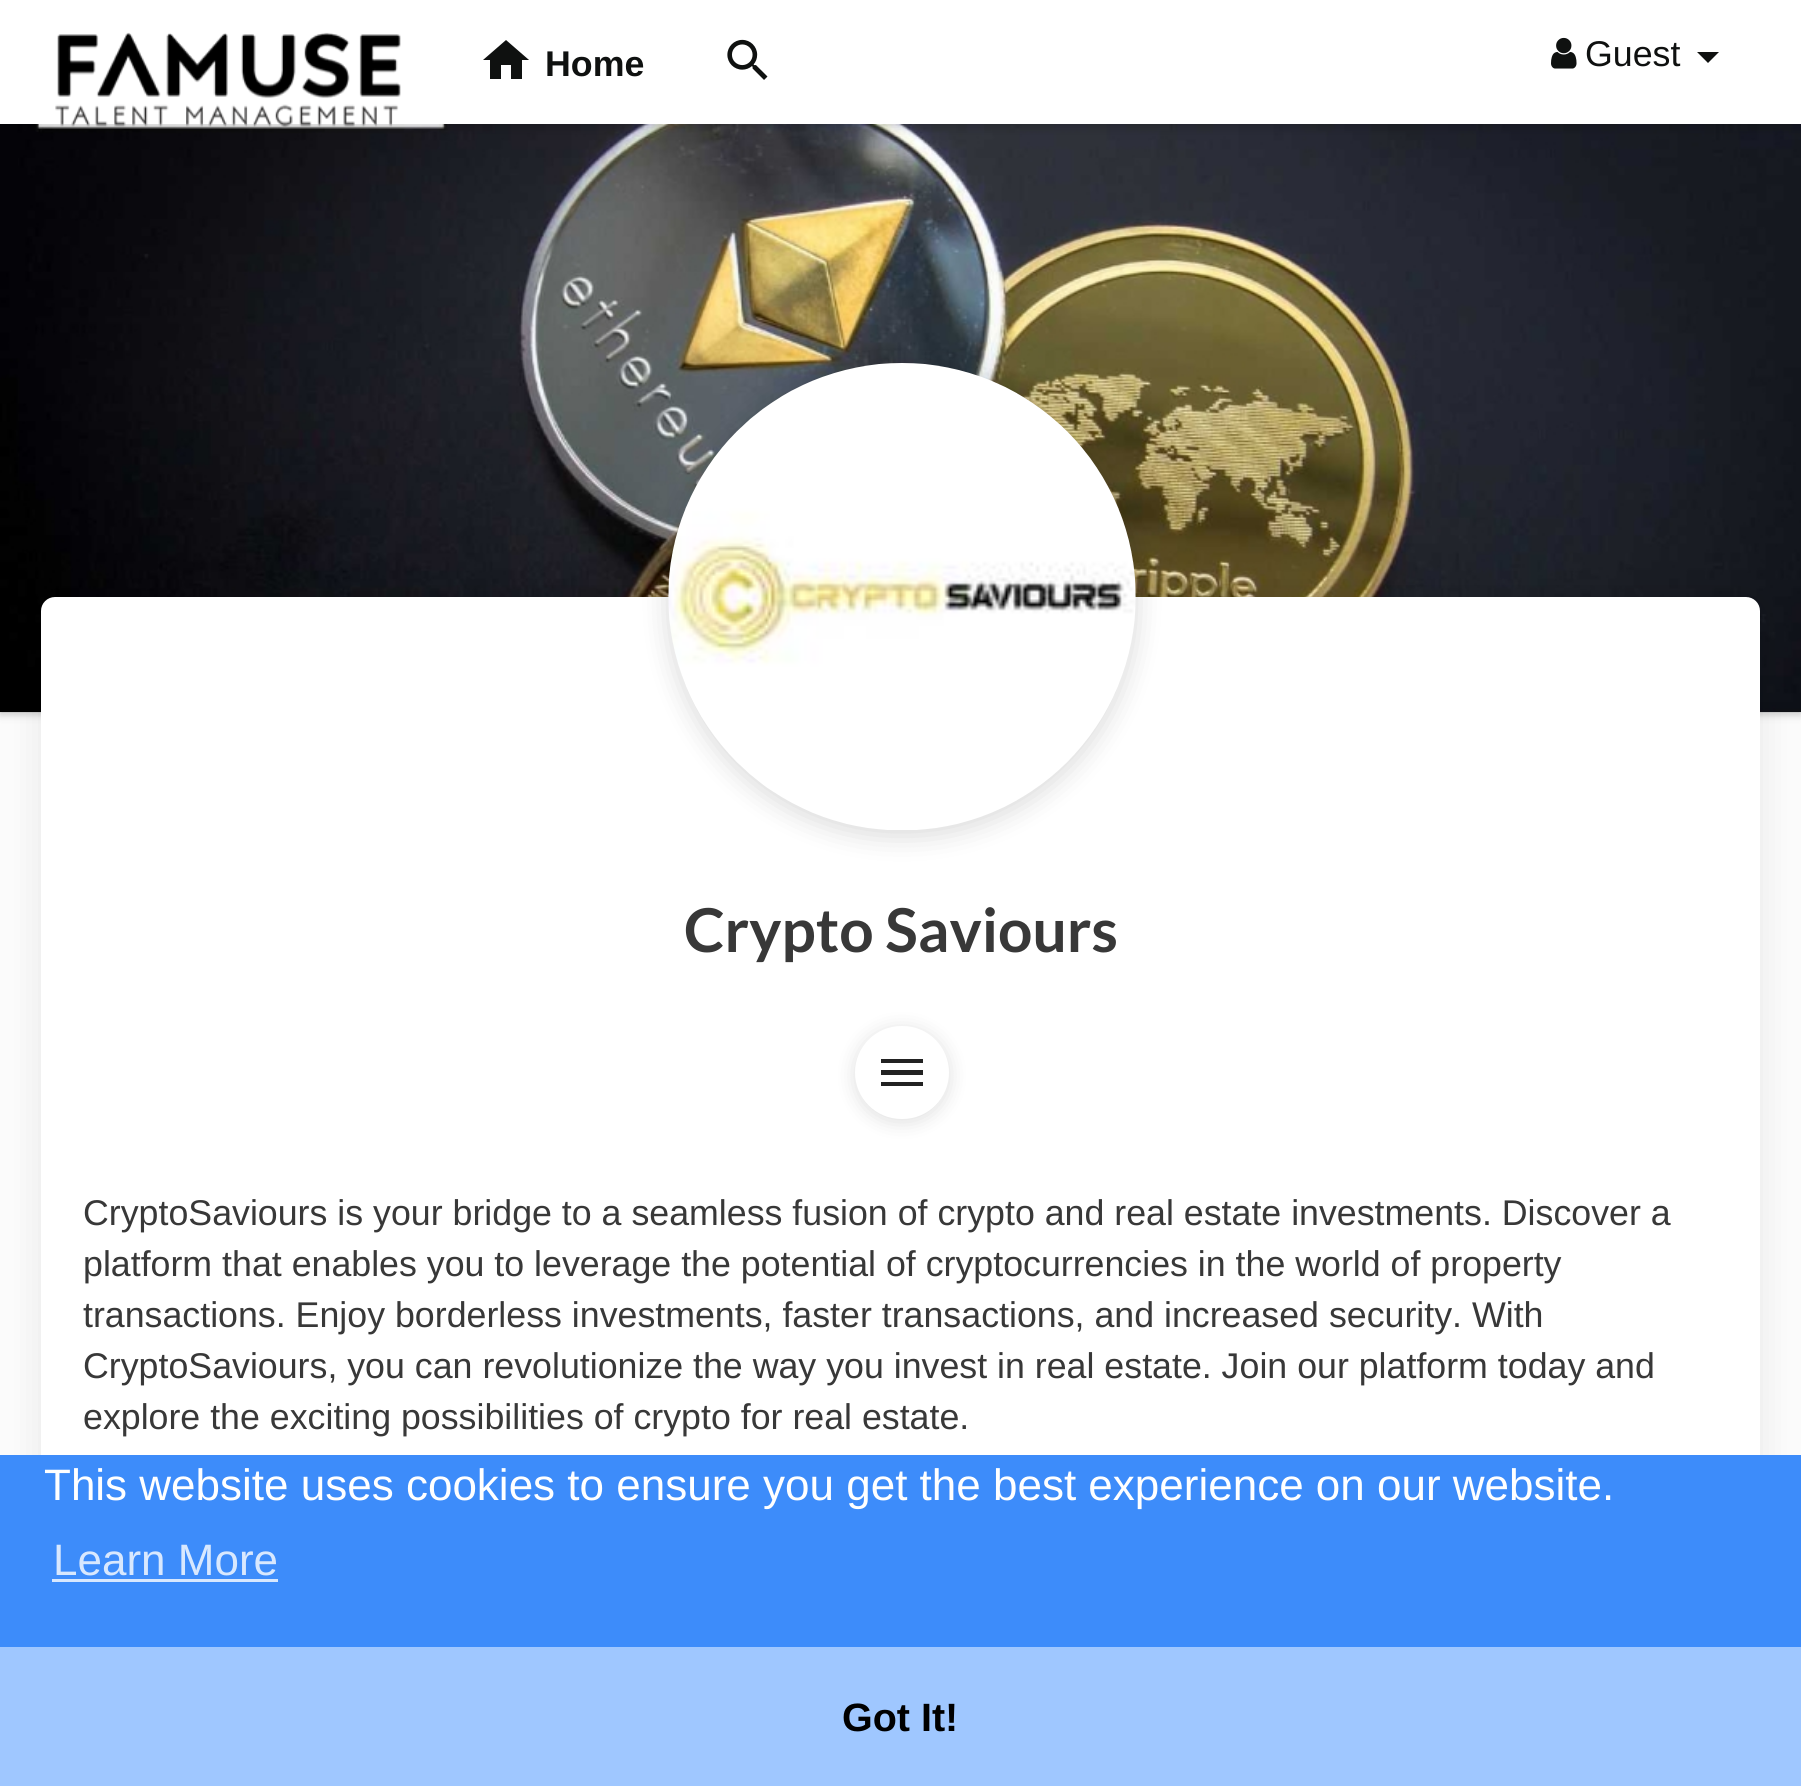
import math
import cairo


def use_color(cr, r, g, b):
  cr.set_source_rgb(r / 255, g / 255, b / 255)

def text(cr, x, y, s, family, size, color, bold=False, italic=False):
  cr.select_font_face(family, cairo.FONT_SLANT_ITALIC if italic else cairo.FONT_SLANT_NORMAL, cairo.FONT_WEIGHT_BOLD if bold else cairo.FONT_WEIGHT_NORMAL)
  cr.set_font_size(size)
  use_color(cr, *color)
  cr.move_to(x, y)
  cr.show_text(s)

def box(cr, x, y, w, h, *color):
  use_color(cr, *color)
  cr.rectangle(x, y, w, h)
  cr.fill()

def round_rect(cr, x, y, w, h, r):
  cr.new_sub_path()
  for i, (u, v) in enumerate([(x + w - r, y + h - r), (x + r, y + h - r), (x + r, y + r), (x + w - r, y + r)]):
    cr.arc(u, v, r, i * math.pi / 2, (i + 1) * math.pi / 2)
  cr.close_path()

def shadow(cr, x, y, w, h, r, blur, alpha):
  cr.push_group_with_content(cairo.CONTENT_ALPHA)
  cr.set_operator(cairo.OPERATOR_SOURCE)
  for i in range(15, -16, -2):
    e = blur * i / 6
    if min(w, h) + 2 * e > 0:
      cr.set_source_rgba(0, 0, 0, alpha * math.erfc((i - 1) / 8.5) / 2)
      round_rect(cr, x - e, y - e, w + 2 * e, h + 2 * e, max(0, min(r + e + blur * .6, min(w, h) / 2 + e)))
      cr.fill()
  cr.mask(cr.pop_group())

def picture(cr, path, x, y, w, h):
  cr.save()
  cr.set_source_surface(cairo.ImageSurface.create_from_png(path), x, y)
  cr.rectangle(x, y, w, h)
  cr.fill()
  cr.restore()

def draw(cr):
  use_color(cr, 251, 251, 251)
  cr.paint()
  use_color(cr, 0, 0, 0)
  shadow(cr, 0, 127, 1801, 588, 0, 4, 0.2)
  picture(cr, "img_04.png", 0, 124, 1801, 589)
  shadow(cr, 0, 3, 1801, 124, 0, 5.5, 0.2)
  box(cr, 0, 0, 1801, 124, 255, 255, 255)
  picture(cr, "img_01.png", 55, 32, 346, 95)
  use_color(cr, 15, 17, 16)
  cr.new_path()
  cr.move_to(501, 79)
  cr.line_to(501, 65)
  cr.line_to(511, 65)
  cr.line_to(511, 79)
  cr.line_to(522, 79)
  cr.line_to(522, 60)
  cr.line_to(529, 60)
  cr.line_to(506, 40)
  cr.line_to(483, 60)
  cr.line_to(490, 60)
  cr.line_to(490, 79)
  cr.close_path()
  cr.fill()
  picture(cr, "img_02.png", 727, 39, 41, 41)
  picture(cr, "img_03.png", 1551, 37, 26, 32)
  cr.new_path()
  cr.move_to(1697, 52)
  cr.line_to(1719, 52)
  cr.line_to(1708, 63)
  cr.close_path()
  cr.fill()
  use_color(cr, 0, 0, 0)
  shadow(cr, 41, 600, 1719, 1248, 14, 18, 0.08)
  use_color(cr, 255, 255, 255)
  round_rect(cr, 41, 597, 1719, 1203, 14)
  cr.fill()
  use_color(cr, 0, 0, 0)
  shadow(cr, 668, 369, 468, 467, 233.5, 14, 0.15)
  picture(cr, "img_05.png", 668, 363, 468, 467)
  shadow(cr, 855, 1029, 94, 93, 46.5, 9.5, 0.13)
  use_color(cr, 255, 255, 255)
  round_rect(cr, 855, 1026, 94, 93, 46.5)
  cr.fill()
  use_color(cr, 34, 34, 34)
  cr.new_path()
  cr.move_to(881, 1059)
  cr.line_to(923, 1059)
  cr.line_to(923, 1063)
  cr.line_to(881, 1063)
  cr.line_to(881, 1059)
  cr.move_to(881, 1070)
  cr.line_to(923, 1070)
  cr.line_to(923, 1075)
  cr.line_to(881, 1075)
  cr.line_to(881, 1070)
  cr.move_to(881, 1082)
  cr.line_to(923, 1082)
  cr.line_to(923, 1086)
  cr.line_to(881, 1086)
  cr.close_path()
  cr.fill()
  box(cr, 0, 1455, 1801, 192, 61, 140, 250)
  box(cr, 52, 1579, 226, 3, 216, 232, 254)
  box(cr, 0, 1647, 1801, 139, 159, 199, 255)
  text(cr, 545, 76, "Home", "Liberation Sans", 35.75, (15, 17, 16), bold=True)
  text(cr, 1585, 66, "Guest", "Liberation Sans", 35.75, (15, 17, 16))
  text(cr, 684, 952, "Crypto Saviours", "Lato", 60.5, (56, 56, 56), bold=True)
  text(cr, 83, 1225, "CryptoSaviours is your bridge to a seamless fusion of crypto and real estate investments. Discover a", "Liberation Sans", 35.75, (56, 56, 56))
  text(cr, 83, 1276, "platform that enables you to leverage the potential of cryptocurrencies in the world of property", "Liberation Sans", 35.75, (56, 56, 56))
  text(cr, 83, 1327, "transactions. Enjoy borderless investments, faster transactions, and increased security. With", "Liberation Sans", 35.75, (56, 56, 56))
  text(cr, 83, 1378, "CryptoSaviours, you can revolutionize the way you invest in real estate. Join our platform today and", "Liberation Sans", 35.75, (56, 56, 56))
  text(cr, 83, 1429, "explore the exciting possibilities of crypto for real estate.", "Liberation Sans", 35.75, (56, 56, 56))
  text(cr, 44, 1500, "This website uses cookies to ensure you get the best experience on our website.", "Liberation Sans", 44, (255, 255, 255))
  text(cr, 53, 1575, "Learn More", "Liberation Sans", 44, (216, 232, 254))
  text(cr, 842, 1731, "Got It!", "Liberation Sans", 39.5, (0, 0, 0), bold=True)


surface = cairo.ImageSurface(cairo.FORMAT_RGB24, 1801, 1786)
cr = cairo.Context(surface)
options = cairo.FontOptions()
options.set_hint_metrics(cairo.HINT_METRICS_OFF)
options.set_hint_style(cairo.HINT_STYLE_NONE)
cr.set_font_options(options)
cr.set_miter_limit(4)
draw(cr)
surface.write_to_png("out.png")
